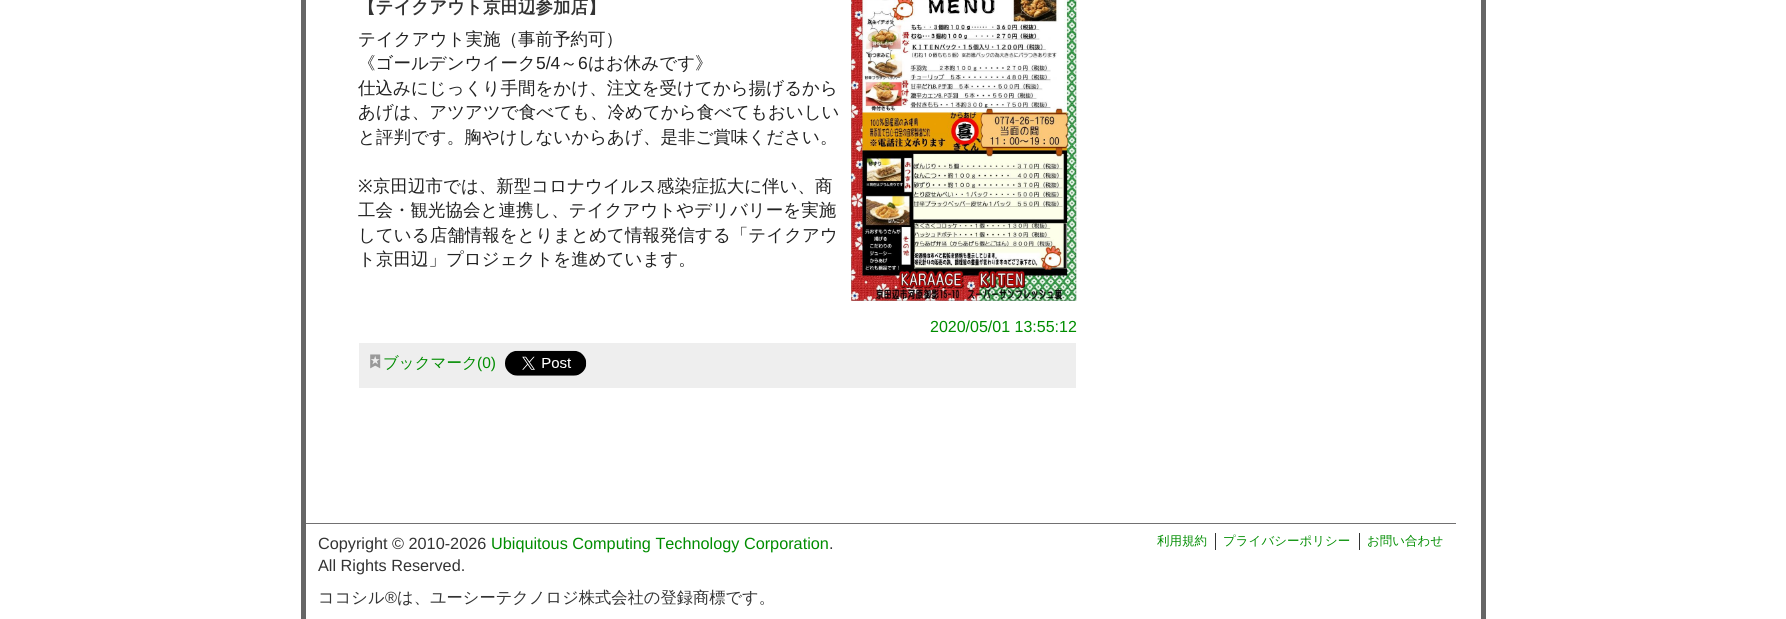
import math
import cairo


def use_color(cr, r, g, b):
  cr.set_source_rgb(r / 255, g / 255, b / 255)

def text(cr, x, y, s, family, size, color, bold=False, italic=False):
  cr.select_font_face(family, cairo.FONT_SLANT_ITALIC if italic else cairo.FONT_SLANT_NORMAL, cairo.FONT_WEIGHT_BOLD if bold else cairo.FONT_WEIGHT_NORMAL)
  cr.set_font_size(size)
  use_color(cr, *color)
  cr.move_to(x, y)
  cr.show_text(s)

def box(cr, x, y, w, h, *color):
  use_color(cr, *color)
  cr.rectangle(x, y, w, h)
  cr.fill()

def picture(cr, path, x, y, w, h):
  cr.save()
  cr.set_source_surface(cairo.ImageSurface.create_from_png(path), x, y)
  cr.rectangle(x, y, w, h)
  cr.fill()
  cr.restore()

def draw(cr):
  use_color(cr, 255, 255, 255)
  cr.paint()
  box(cr, 1481, 0, 5, 619, 102, 102, 102)
  box(cr, 301, 0, 5, 619, 102, 102, 102)
  picture(cr, "img_01.png", 851, 0, 226, 301)
  box(cr, 359, 343, 717, 45, 238, 238, 238)
  picture(cr, "img_02.png", 370, 354, 11, 15)
  picture(cr, "img_03.png", 505, 350, 82, 26)
  box(cr, 306, 523, 1150, 1, 113, 112, 113)
  box(cr, 1215, 533, 1, 17, 51, 51, 51)
  box(cr, 1359, 533, 1, 17, 51, 51, 51)
  text(cr, 358, 13, "【テイクアウト京田辺参加店】", "WenQuanYi Zen Hei", 17.5, (51, 51, 51), bold=True)
  text(cr, 358, 45, "テイクアウト実施（事前予約可）", "WenQuanYi Zen Hei Medium", 17.5, (34, 34, 34))
  text(cr, 358, 69, "《ゴールデンウイーク", "WenQuanYi Zen Hei Medium", 17.5, (34, 34, 34))
  text(cr, 536, 69, "5/4", "Liberation Sans", 17.5, (34, 34, 34))
  text(cr, 560, 69, "～", "WenQuanYi Zen Hei Medium", 17.5, (34, 34, 34))
  text(cr, 578, 69, "6", "Liberation Sans", 17.5, (34, 34, 34))
  text(cr, 588, 69, "はお休みです》", "WenQuanYi Zen Hei Medium", 17.5, (34, 34, 34))
  text(cr, 358, 94, "仕込みにじっくり手間をかけ、注文を受けてから揚げるから", "WenQuanYi Zen Hei Medium", 17.5, (34, 34, 34))
  text(cr, 358, 118, "あげは、アツアツで食べても、冷めてから食べてもおいしい", "WenQuanYi Zen Hei Medium", 17.5, (34, 34, 34))
  text(cr, 358, 143, "と評判です。胸やけしないからあげ、是非ご賞味ください。", "WenQuanYi Zen Hei Medium", 17.5, (34, 34, 34))
  text(cr, 358, 192, "※", "Noto Sans", 17.5, (34, 34, 34))
  text(cr, 373, 192, "京田辺市では、新型コロナウイルス感染症拡大に伴い、商", "WenQuanYi Zen Hei Medium", 17.5, (34, 34, 34))
  text(cr, 358, 216, "工会・観光協会と連携し、テイクアウトやデリバリーを実施", "WenQuanYi Zen Hei Medium", 17.5, (34, 34, 34))
  text(cr, 358, 241, "している店舗情報をとりまとめて情報発信する「テイクアウ", "WenQuanYi Zen Hei Medium", 17.5, (34, 34, 34))
  text(cr, 358, 265, "ト京田辺」プロジェクトを進めています。", "WenQuanYi Zen Hei Medium", 17.5, (34, 34, 34))
  text(cr, 930, 332, "2020/05/01 13:55:12", "Liberation Sans", 16, (0, 141, 0))
  text(cr, 383, 368, "ブックマーク", "WenQuanYi Zen Hei Medium", 15.5, (0, 141, 0))
  text(cr, 477, 368, "(0)", "Liberation Sans", 15.5, (0, 141, 0))
  text(cr, 318, 549, "Copyright © 2010-2026", "Liberation Sans", 16.25, (51, 51, 51))
  text(cr, 491, 549, "Ubiquitous Computing Technology Corporation", "Liberation Sans", 16.25, (0, 141, 0))
  text(cr, 829, 549, ".", "Liberation Sans", 16.25, (51, 51, 51))
  text(cr, 318, 571, "All Rights Reserved.", "Liberation Sans", 16.25, (51, 51, 51))
  text(cr, 318, 603, "ココシル", "WenQuanYi Zen Hei Medium", 16.25, (51, 51, 51))
  text(cr, 385, 603, "®", "Liberation Sans", 16.25, (51, 51, 51))
  text(cr, 397, 603, "は、ユーシーテクノロジ株式会社の登録商標です。", "WenQuanYi Zen Hei Medium", 16.25, (51, 51, 51))
  text(cr, 1157, 545, "利用規約", "WenQuanYi Zen Hei Medium", 12.5, (0, 141, 0))
  text(cr, 1223, 545, "プライバシーポリシー", "WenQuanYi Zen Hei Medium", 12.5, (0, 141, 0))
  text(cr, 1367, 545, "お問い合わせ", "WenQuanYi Zen Hei Medium", 12.5, (0, 141, 0))


surface = cairo.ImageSurface(cairo.FORMAT_RGB24, 1786, 619)
cr = cairo.Context(surface)
options = cairo.FontOptions()
options.set_hint_metrics(cairo.HINT_METRICS_OFF)
options.set_hint_style(cairo.HINT_STYLE_NONE)
cr.set_font_options(options)
cr.set_miter_limit(4)
draw(cr)
surface.write_to_png("out.png")
